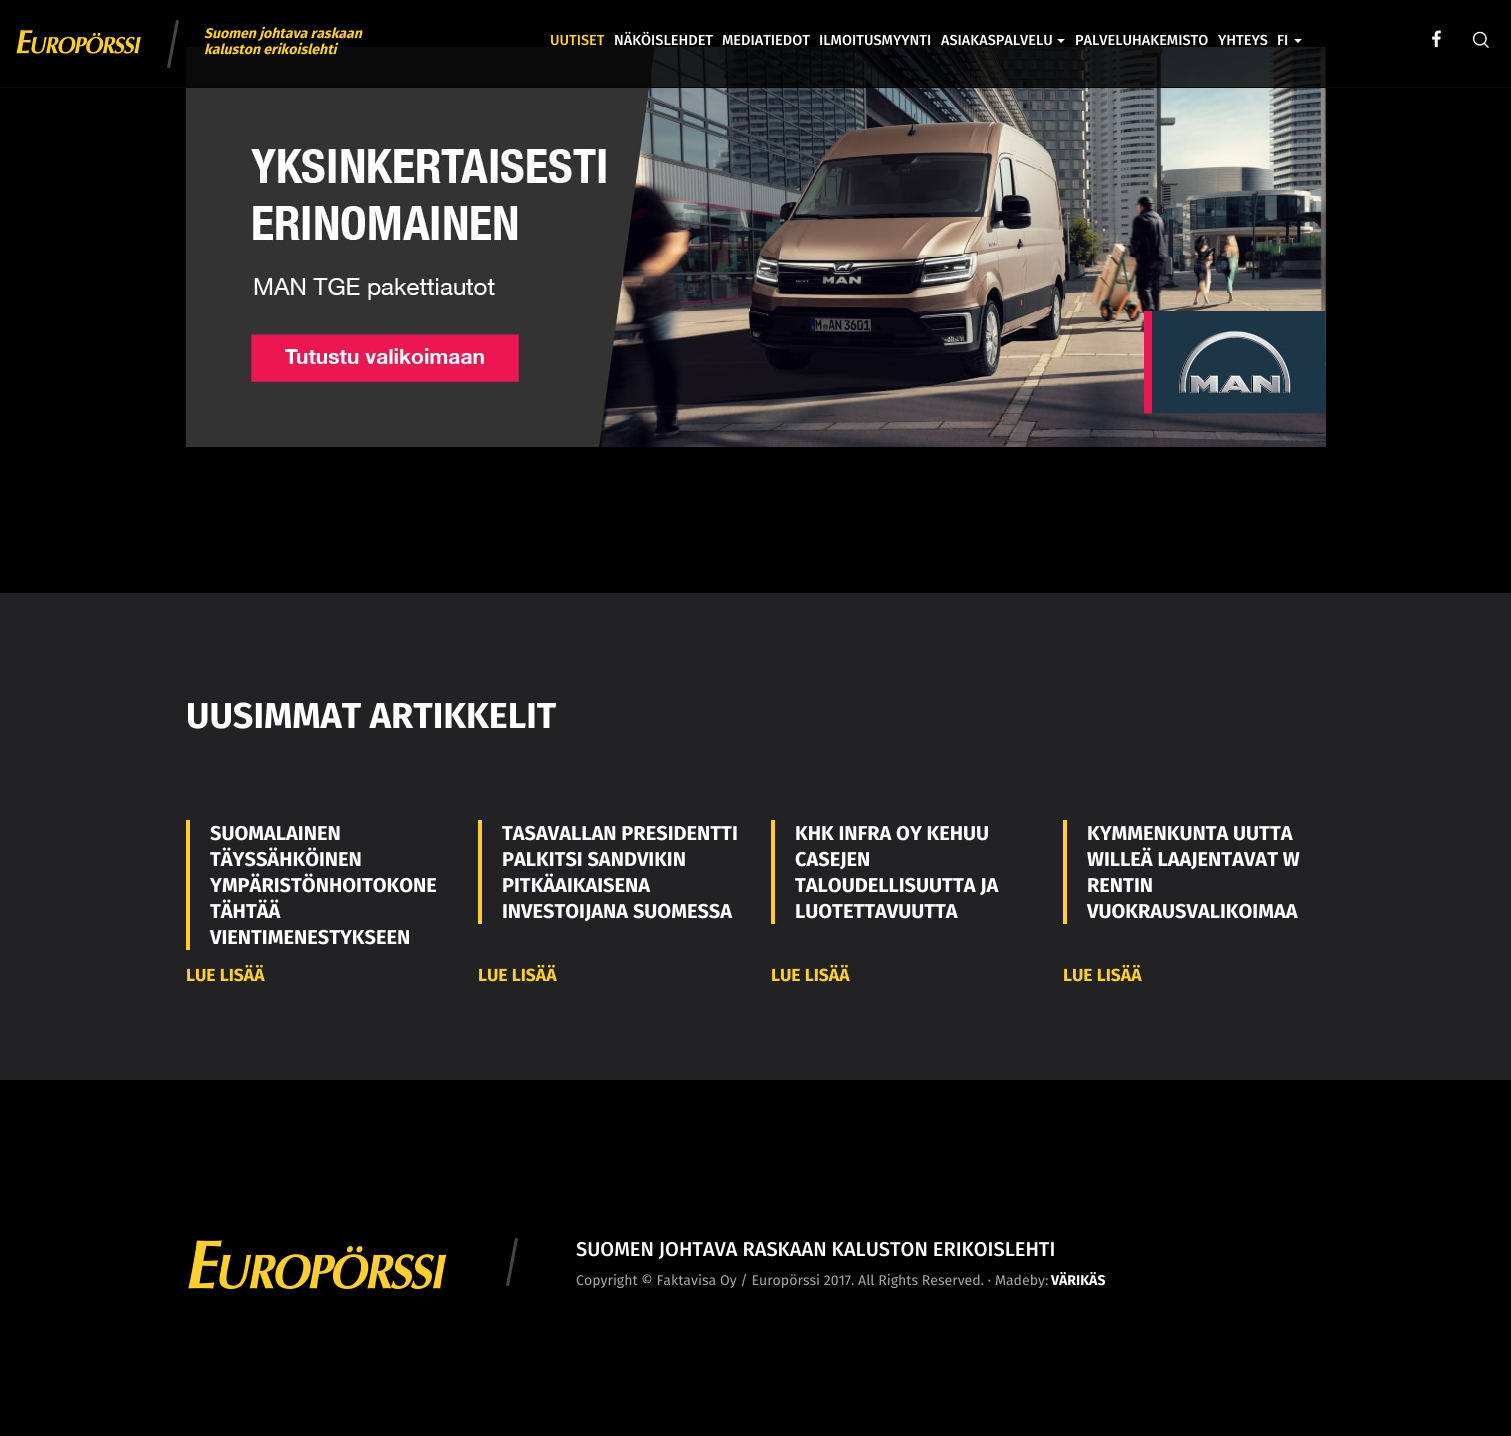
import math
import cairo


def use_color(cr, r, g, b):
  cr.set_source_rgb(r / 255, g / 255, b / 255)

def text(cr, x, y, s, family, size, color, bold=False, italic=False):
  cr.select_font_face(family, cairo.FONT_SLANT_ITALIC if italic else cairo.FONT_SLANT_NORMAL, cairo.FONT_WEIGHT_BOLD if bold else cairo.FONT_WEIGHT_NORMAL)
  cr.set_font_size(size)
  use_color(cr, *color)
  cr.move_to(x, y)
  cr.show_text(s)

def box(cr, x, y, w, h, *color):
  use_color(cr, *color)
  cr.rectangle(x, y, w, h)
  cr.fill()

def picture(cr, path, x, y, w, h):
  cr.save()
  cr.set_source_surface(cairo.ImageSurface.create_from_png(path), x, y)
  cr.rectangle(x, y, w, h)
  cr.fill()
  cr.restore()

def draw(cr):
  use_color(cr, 0, 0, 0)
  cr.paint()
  picture(cr, "img_05.png", 186, 47, 1140, 400)
  cr.set_source_rgba(0, 0, 0, 0.8)
  cr.rectangle(186, 47, 1140, 40)
  cr.fill()
  box(cr, 0, 87, 1511, 1, 8, 8, 8)
  picture(cr, "img_01.png", 16, 30, 125, 24)
  picture(cr, "img_02.png", 167, 20, 12, 48)
  use_color(cr, 255, 255, 255)
  cr.new_path()
  cr.move_to(1057, 39)
  cr.line_to(1065, 39)
  cr.line_to(1061, 43)
  cr.close_path()
  cr.fill()
  cr.new_path()
  cr.move_to(1294, 39)
  cr.line_to(1302, 39)
  cr.line_to(1298, 43)
  cr.close_path()
  cr.fill()
  picture(cr, "img_03.png", 1432, 30, 9, 18)
  picture(cr, "img_04.png", 1472, 31, 17, 17)
  box(cr, 0, 593, 1511, 487, 34, 34, 36)
  box(cr, 186, 820, 4, 130, 255, 207, 49)
  box(cr, 478, 820, 4, 104, 255, 207, 49)
  box(cr, 771, 820, 4, 104, 255, 207, 49)
  box(cr, 1063, 820, 4, 104, 255, 207, 49)
  picture(cr, "img_06.png", 188, 1240, 259, 49)
  picture(cr, "img_02.png", 506, 1238, 12, 48)
  text(cr, 204, 38, "Suomen johtava raskaan", "Fira Sans", 14, (255, 207, 49), bold=True, italic=True)
  text(cr, 204, 54, "kaluston erikoislehti", "Fira Sans", 14, (255, 207, 49), bold=True, italic=True)
  text(cr, 550, 45, "UUTISET", "Fira Sans Medium", 14.5, (255, 207, 49))
  text(cr, 614, 45, "NÄKÖISLEHDET", "Fira Sans Medium", 14.5, (255, 255, 255))
  text(cr, 722, 45, "MEDIATIEDOT", "Fira Sans Medium", 14.5, (255, 255, 255))
  text(cr, 819, 45, "ILMOITUSMYYNTI", "Fira Sans Medium", 14.5, (255, 255, 255))
  text(cr, 941, 45, "ASIAKASPALVELU", "Fira Sans Medium", 14.5, (255, 255, 255))
  text(cr, 1075, 45, "PALVELUHAKEMISTO", "Fira Sans Medium", 14.5, (255, 255, 255))
  text(cr, 1218, 45, "YHTEYS", "Fira Sans Medium", 14.5, (255, 255, 255))
  text(cr, 1277, 45, "FI", "Fira Sans Medium", 14.5, (255, 255, 255))
  text(cr, 186, 728, "UUSIMMAT ARTIKKELIT", "Fira Sans", 36, (255, 255, 255), bold=True)
  text(cr, 210, 840, "SUOMALAINEN", "Fira Sans", 20, (255, 255, 255), bold=True)
  text(cr, 210, 866, "TÄYSSÄHKÖINEN", "Fira Sans", 20, (255, 255, 255), bold=True)
  text(cr, 210, 892, "YMPÄRISTÖNHOITOKONE", "Fira Sans", 20, (255, 255, 255), bold=True)
  text(cr, 210, 918, "TÄHTÄÄ", "Fira Sans", 20, (255, 255, 255), bold=True)
  text(cr, 210, 944, "VIENTIMENESTYKSEEN", "Fira Sans", 20, (255, 255, 255), bold=True)
  text(cr, 186, 981, "LUE LISÄÄ", "Fira Sans", 17.5, (255, 207, 49), bold=True)
  text(cr, 502, 840, "TASAVALLAN PRESIDENTTI", "Fira Sans", 20, (255, 255, 255), bold=True)
  text(cr, 502, 866, "PALKITSI SANDVIKIN", "Fira Sans", 20, (255, 255, 255), bold=True)
  text(cr, 502, 892, "PITKÄAIKAISENA", "Fira Sans", 20, (255, 255, 255), bold=True)
  text(cr, 502, 918, "INVESTOIJANA SUOMESSA", "Fira Sans", 20, (255, 255, 255), bold=True)
  text(cr, 478, 981, "LUE LISÄÄ", "Fira Sans", 17.5, (255, 207, 49), bold=True)
  text(cr, 795, 840, "KHK INFRA OY KEHUU", "Fira Sans", 20, (255, 255, 255), bold=True)
  text(cr, 795, 866, "CASEJEN", "Fira Sans", 20, (255, 255, 255), bold=True)
  text(cr, 795, 892, "TALOUDELLISUUTTA JA", "Fira Sans", 20, (255, 255, 255), bold=True)
  text(cr, 795, 918, "LUOTETTAVUUTTA", "Fira Sans", 20, (255, 255, 255), bold=True)
  text(cr, 771, 981, "LUE LISÄÄ", "Fira Sans", 17.5, (255, 207, 49), bold=True)
  text(cr, 1087, 840, "KYMMENKUNTA UUTTA", "Fira Sans", 20, (255, 255, 255), bold=True)
  text(cr, 1087, 866, "WILLEÄ LAAJENTAVAT W", "Fira Sans", 20, (255, 255, 255), bold=True)
  text(cr, 1087, 892, "RENTIN", "Fira Sans", 20, (255, 255, 255), bold=True)
  text(cr, 1087, 918, "VUOKRAUSVALIKOIMAA", "Fira Sans", 20, (255, 255, 255), bold=True)
  text(cr, 1063, 981, "LUE LISÄÄ", "Fira Sans", 17.5, (255, 207, 49), bold=True)
  text(cr, 576, 1256, "SUOMEN JOHTAVA RASKAAN KALUSTON ERIKOISLEHTI", "Fira Sans Medium", 20, (255, 255, 255))
  text(cr, 576, 1285, "Copyright © Faktavisa Oy / Europörssi 2017. All Rights Reserved. · Madeby:", "Fira Sans", 14.1, (168, 168, 168))
  text(cr, 1051, 1285, "VÄRIKÄS", "Fira Sans", 14.1, (255, 255, 255), bold=True)


surface = cairo.ImageSurface(cairo.FORMAT_RGB24, 1511, 1436)
cr = cairo.Context(surface)
options = cairo.FontOptions()
options.set_hint_metrics(cairo.HINT_METRICS_OFF)
options.set_hint_style(cairo.HINT_STYLE_NONE)
cr.set_font_options(options)
cr.set_miter_limit(4)
draw(cr)
surface.write_to_png("out.png")
